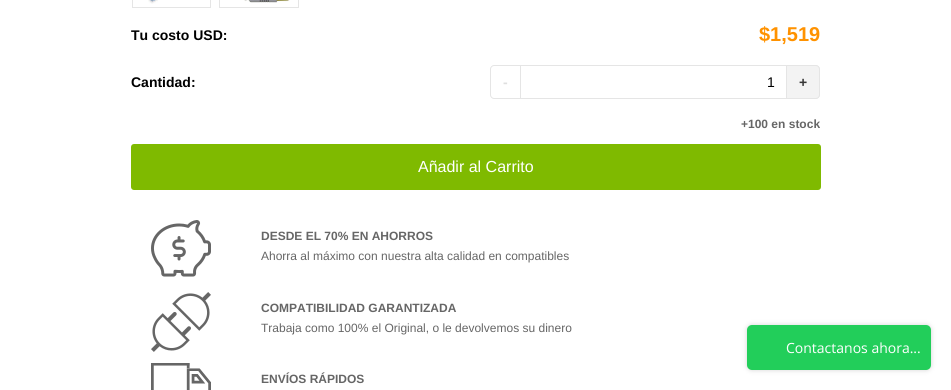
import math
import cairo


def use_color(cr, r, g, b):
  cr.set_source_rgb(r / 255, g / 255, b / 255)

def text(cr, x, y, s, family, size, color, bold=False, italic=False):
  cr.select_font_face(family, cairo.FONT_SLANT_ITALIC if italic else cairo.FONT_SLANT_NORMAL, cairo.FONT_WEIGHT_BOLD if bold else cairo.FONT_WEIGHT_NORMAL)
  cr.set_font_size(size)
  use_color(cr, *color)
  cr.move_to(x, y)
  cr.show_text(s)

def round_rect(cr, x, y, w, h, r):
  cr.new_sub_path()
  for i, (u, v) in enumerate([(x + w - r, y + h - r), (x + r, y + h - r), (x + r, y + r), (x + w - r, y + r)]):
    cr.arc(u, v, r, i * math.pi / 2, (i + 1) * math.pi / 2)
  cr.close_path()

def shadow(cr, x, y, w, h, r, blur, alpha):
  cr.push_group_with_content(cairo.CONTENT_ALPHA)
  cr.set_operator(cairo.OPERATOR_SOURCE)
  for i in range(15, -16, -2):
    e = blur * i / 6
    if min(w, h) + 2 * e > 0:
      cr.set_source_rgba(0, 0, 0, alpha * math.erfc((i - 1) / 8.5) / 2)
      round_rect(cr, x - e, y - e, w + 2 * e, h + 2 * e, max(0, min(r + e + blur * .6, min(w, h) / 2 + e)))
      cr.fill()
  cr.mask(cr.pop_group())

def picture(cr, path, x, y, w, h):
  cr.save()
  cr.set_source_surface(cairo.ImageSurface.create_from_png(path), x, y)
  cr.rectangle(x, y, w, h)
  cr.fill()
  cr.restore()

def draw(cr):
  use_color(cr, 255, 255, 255)
  cr.paint()
  cr.rectangle(132.5, -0.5, 78, 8)
  use_color(cr, 229, 229, 229)
  cr.set_line_width(1)
  cr.stroke()
  picture(cr, "img_01.png", 148, 0, 10, 4)
  cr.rectangle(219.5, -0.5, 79, 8)
  cr.stroke()
  picture(cr, "img_02.png", 244, 0, 46, 3)
  cr.set_fill_rule(cairo.FILL_RULE_EVEN_ODD)
  cr.new_path()
  cr.move_to(494, 65)
  cr.line_to(520, 65)
  cr.line_to(520, 99)
  cr.line_to(494, 99)
  cr.curve_to(492, 99, 490, 97, 490, 95)
  cr.line_to(490, 69)
  cr.curve_to(490, 67, 492, 65, 494, 65)
  cr.close_path()
  cr.move_to(494, 66)
  cr.line_to(520, 66)
  cr.line_to(520, 98)
  cr.line_to(494, 98)
  cr.curve_to(492.5, 98, 491, 96.5, 491, 95)
  cr.line_to(491, 69)
  cr.curve_to(491, 67.5, 492.5, 66, 494, 66)
  cr.close_path()
  cr.fill()
  cr.rectangle(520.5, 65.5, 266, 33)
  cr.stroke()
  use_color(cr, 243, 243, 243)
  cr.new_path()
  cr.move_to(787, 65)
  cr.line_to(816, 65)
  cr.curve_to(818, 65, 820, 67, 820, 69)
  cr.line_to(820, 95)
  cr.curve_to(820, 97, 818, 99, 816, 99)
  cr.line_to(787, 99)
  cr.close_path()
  cr.fill()
  use_color(cr, 229, 229, 229)
  cr.new_path()
  cr.move_to(787, 65)
  cr.line_to(816, 65)
  cr.curve_to(818, 65, 820, 67, 820, 69)
  cr.line_to(820, 95)
  cr.curve_to(820, 97, 818, 99, 816, 99)
  cr.line_to(787, 99)
  cr.close_path()
  cr.move_to(787, 66)
  cr.line_to(816, 66)
  cr.curve_to(817.5, 66, 819, 67.5, 819, 69)
  cr.line_to(819, 95)
  cr.curve_to(819, 96.5, 817.5, 98, 816, 98)
  cr.line_to(787, 98)
  cr.close_path()
  cr.fill()
  use_color(cr, 127, 186, 0)
  round_rect(cr, 131, 144, 690, 46, 3)
  cr.fill()
  picture(cr, "img_03.png", 151, 220, 60, 57)
  picture(cr, "img_04.png", 151, 292, 60, 60)
  picture(cr, "img_05.png", 151, 363, 60, 27)
  use_color(cr, 211, 211, 211)
  shadow(cr, 747, 325, 184, 45, 5, 2.5, 1)
  use_color(cr, 34, 206, 90)
  round_rect(cr, 747, 325, 184, 45, 5)
  cr.fill()
  text(cr, 131, 40, "Tu costo USD:", "Liberation Sans", 14, (0, 0, 0), bold=True)
  text(cr, 759, 41, "$1,519", "Liberation Sans", 20, (255, 146, 0), bold=True)
  text(cr, 131, 87, "Cantidad:", "Liberation Sans", 14, (0, 0, 0), bold=True)
  text(cr, 503, 87, "-", "Liberation Sans", 14, (223, 223, 223), bold=True)
  text(cr, 767, 87, "1", "Liberation Sans", 14, (0, 0, 0))
  text(cr, 799, 87, "+", "Liberation Sans", 14, (55, 55, 55), bold=True)
  text(cr, 741, 128, "+100 en stock", "Liberation Sans", 12, (102, 102, 102), bold=True)
  text(cr, 418, 172, "Añadir al Carrito", "Liberation Sans", 16, (255, 255, 255))
  text(cr, 261, 240, "DESDE EL 70% EN AHORROS", "Liberation Sans", 12, (102, 102, 102), bold=True)
  text(cr, 261, 260, "Ahorra al máximo con nuestra alta calidad en compatibles", "Liberation Sans", 12, (102, 102, 102))
  text(cr, 261, 312, "COMPATIBILIDAD GARANTIZADA", "Liberation Sans", 12, (102, 102, 102), bold=True)
  text(cr, 261, 332, "Trabaja como 100% el Original, o le devolvemos su dinero", "Liberation Sans", 12, (102, 102, 102))
  text(cr, 261, 383, "ENVÍOS RÁPIDOS", "Liberation Sans", 12, (102, 102, 102), bold=True)
  text(cr, 786, 353, "Contactanos ahora...", "Open Sans", 14, (255, 255, 255))


surface = cairo.ImageSurface(cairo.FORMAT_RGB24, 951, 390)
cr = cairo.Context(surface)
options = cairo.FontOptions()
options.set_hint_metrics(cairo.HINT_METRICS_OFF)
options.set_hint_style(cairo.HINT_STYLE_NONE)
cr.set_font_options(options)
cr.set_miter_limit(4)
draw(cr)
surface.write_to_png("out.png")
